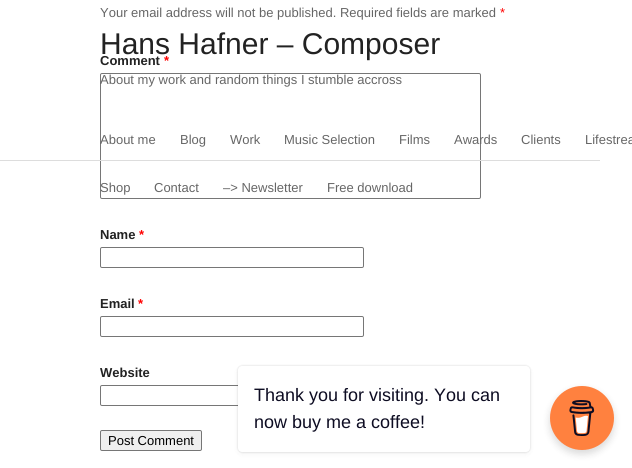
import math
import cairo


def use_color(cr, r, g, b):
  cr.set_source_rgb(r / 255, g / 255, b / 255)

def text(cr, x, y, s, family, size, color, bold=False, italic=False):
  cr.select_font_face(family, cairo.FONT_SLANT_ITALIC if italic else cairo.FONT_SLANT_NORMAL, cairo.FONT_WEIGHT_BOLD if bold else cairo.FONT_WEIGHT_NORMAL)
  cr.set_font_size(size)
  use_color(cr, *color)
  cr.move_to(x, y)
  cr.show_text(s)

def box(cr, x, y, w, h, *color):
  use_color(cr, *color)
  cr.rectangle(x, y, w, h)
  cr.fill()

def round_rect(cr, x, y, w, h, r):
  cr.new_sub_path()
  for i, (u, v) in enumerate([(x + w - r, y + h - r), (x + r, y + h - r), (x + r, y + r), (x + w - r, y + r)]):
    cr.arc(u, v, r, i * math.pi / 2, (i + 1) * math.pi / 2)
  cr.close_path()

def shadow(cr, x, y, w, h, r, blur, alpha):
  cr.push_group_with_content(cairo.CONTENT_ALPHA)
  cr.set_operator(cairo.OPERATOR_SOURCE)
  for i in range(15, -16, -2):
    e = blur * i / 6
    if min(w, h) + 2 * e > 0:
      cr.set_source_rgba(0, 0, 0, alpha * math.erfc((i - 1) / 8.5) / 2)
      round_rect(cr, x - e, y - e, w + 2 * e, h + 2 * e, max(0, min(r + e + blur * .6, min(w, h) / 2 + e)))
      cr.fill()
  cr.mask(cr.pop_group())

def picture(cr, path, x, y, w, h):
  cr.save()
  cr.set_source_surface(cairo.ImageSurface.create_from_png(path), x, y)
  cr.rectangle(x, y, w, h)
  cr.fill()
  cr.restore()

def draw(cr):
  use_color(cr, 255, 255, 255)
  cr.paint()
  round_rect(cr, 100.5, 73.5, 380, 125, 1.5)
  use_color(cr, 118, 118, 118)
  cr.set_line_width(1)
  cr.stroke()
  round_rect(cr, 100.5, 247.5, 263, 20, 1.5)
  cr.stroke()
  round_rect(cr, 100.5, 316.5, 263, 20, 1.5)
  cr.stroke()
  round_rect(cr, 100.5, 385.5, 263, 20, 1.5)
  cr.stroke()
  use_color(cr, 239, 239, 239)
  round_rect(cr, 100.5, 430.5, 101, 20, 1.5)
  cr.fill_preserve()
  use_color(cr, 118, 118, 118)
  cr.stroke()
  box(cr, 0, 160, 600, 1, 221, 221, 221)
  use_color(cr, 0, 0, 0)
  shadow(cr, 238, 366, 292, 86, 4, 1, 0.15)
  shadow(cr, 238, 368, 292, 86, 4, 2.5, 0.05)
  use_color(cr, 255, 255, 255)
  round_rect(cr, 238, 366, 292, 86, 4)
  cr.fill()
  use_color(cr, 0, 0, 0)
  shadow(cr, 550, 390, 64, 64, 32, 4, 0.15)
  use_color(cr, 255, 129, 63)
  cr.arc(582, 418, 32, 0, 2 * math.pi)
  cr.fill()
  picture(cr, "img_01.png", 569, 400, 26, 36)
  text(cr, 100, 17, "Your email address will not be published. Required fields are marked", "Liberation Sans", 13, (102, 102, 102))
  text(cr, 500, 17, "*", "Liberation Sans", 13, (255, 0, 0))
  text(cr, 100, 65, "Comment", "Liberation Sans", 13, (34, 34, 34), bold=True)
  text(cr, 164, 65, "*", "Liberation Sans", 13, (255, 0, 0), bold=True)
  text(cr, 100, 239, "Name", "Liberation Sans", 13, (34, 34, 34), bold=True)
  text(cr, 139, 239, "*", "Liberation Sans", 13, (255, 0, 0), bold=True)
  text(cr, 100, 308, "Email", "Liberation Sans", 13, (34, 34, 34), bold=True)
  text(cr, 138, 308, "*", "Liberation Sans", 13, (255, 0, 0), bold=True)
  text(cr, 100, 377, "Website", "Liberation Sans", 13, (34, 34, 34), bold=True)
  text(cr, 108, 445, "Post Comment", "Liberation Sans", 13, (0, 0, 0))
  text(cr, 100, 54, "Hans Hafner – Composer", "Liberation Sans", 30, (34, 34, 34))
  text(cr, 100, 84, "About my work and random things I stumble accross", "Liberation Sans", 13, (102, 102, 102))
  text(cr, 100, 144, "About me", "Liberation Sans", 13, (102, 102, 102))
  text(cr, 180, 144, "Blog", "Liberation Sans", 13, (102, 102, 102))
  text(cr, 230, 144, "Work", "Liberation Sans", 13, (102, 102, 102))
  text(cr, 284, 144, "Music Selection", "Liberation Sans", 13, (102, 102, 102))
  text(cr, 399, 144, "Films", "Liberation Sans", 13, (102, 102, 102))
  text(cr, 454, 144, "Awards", "Liberation Sans", 13, (102, 102, 102))
  text(cr, 521, 144, "Clients", "Liberation Sans", 13, (102, 102, 102))
  text(cr, 585, 144, "Lifestrea", "Liberation Sans", 13, (102, 102, 102))
  text(cr, 100, 192, "Shop", "Liberation Sans", 13, (102, 102, 102))
  text(cr, 154, 192, "Contact", "Liberation Sans", 13, (102, 102, 102))
  text(cr, 223, 192, "–> Newsletter", "Liberation Sans", 13, (102, 102, 102))
  text(cr, 327, 192, "Free download", "Liberation Sans", 13, (102, 102, 102))
  text(cr, 254, 401, "Thank you for visiting. You can", "Liberation Sans", 18, (13, 12, 34))
  text(cr, 254, 428, "now buy me a coffee!", "Liberation Sans", 18, (13, 12, 34))


surface = cairo.ImageSurface(cairo.FORMAT_RGB24, 632, 468)
cr = cairo.Context(surface)
options = cairo.FontOptions()
options.set_hint_metrics(cairo.HINT_METRICS_OFF)
options.set_hint_style(cairo.HINT_STYLE_NONE)
cr.set_font_options(options)
cr.set_miter_limit(4)
draw(cr)
surface.write_to_png("out.png")
